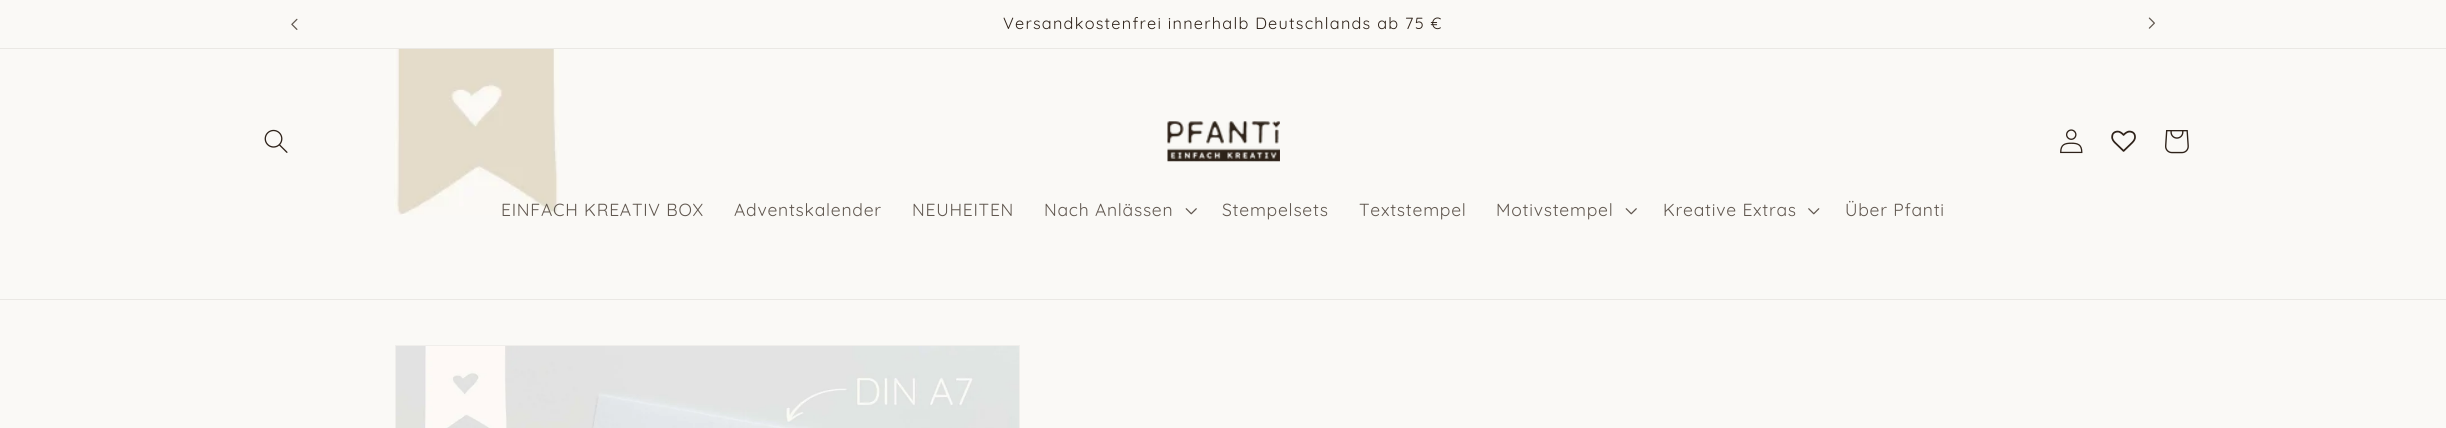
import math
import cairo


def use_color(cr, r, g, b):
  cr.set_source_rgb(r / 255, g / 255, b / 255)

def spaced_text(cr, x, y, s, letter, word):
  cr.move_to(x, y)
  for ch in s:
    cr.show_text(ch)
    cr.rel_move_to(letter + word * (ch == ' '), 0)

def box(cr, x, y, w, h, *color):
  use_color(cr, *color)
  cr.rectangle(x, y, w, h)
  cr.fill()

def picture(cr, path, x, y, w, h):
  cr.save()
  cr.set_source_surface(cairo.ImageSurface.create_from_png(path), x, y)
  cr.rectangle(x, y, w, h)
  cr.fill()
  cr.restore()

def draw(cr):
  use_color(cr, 250, 249, 246)
  cr.paint()
  box(cr, 0, 48, 2446, 1, 234, 232, 228)
  picture(cr, "img_01.png", 291, 18, 7, 12)
  picture(cr, "img_02.png", 2148, 17, 7, 12)
  box(cr, 0, 299, 2446, 1, 234, 232, 228)
  picture(cr, "img_03.png", 394, 49, 165, 166)
  picture(cr, "img_04.png", 264, 129, 24, 24)
  picture(cr, "img_05.png", 1167, 121, 113, 41)
  picture(cr, "img_06.png", 2060, 129, 23, 25)
  picture(cr, "img_07.png", 2111, 130, 25, 22)
  picture(cr, "img_08.png", 2165, 130, 24, 24)
  picture(cr, "img_09.png", 1185, 208, 12, 7)
  picture(cr, "img_09.png", 1625, 208, 12, 7)
  picture(cr, "img_10.png", 1808, 208, 12, 7)
  cr.rectangle(395.5, 345.5, 624, 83)
  use_color(cr, 240, 238, 235)
  cr.set_line_width(1)
  cr.stroke()
  picture(cr, "img_11.png", 396, 346, 623, 82)
  cr.select_font_face("Quicksand")
  cr.set_font_size(16.25)
  use_color(cr, 46, 34, 25)
  spaced_text(cr, 1003, 29, "Versandkostenfrei innerhalb Deutschlands ab 75 €", 1.25, 0)
  cr.set_font_size(17.5)
  use_color(cr, 97, 88, 80)
  spaced_text(cr, 501, 216, "EINFACH KREATIV BOX", 0.75, 0)
  spaced_text(cr, 734, 216, "Adventskalender", 0.75, 0)
  spaced_text(cr, 912, 216, "NEUHEITEN", 0.75, 0)
  spaced_text(cr, 1044, 216, "Nach Anlässen", 0.75, 0)
  spaced_text(cr, 1222, 216, "Stempelsets", 0.75, 0)
  spaced_text(cr, 1359, 216, "Textstempel", 0.75, 0)
  spaced_text(cr, 1496, 216, "Motivstempel", 0.75, 0)
  spaced_text(cr, 1663, 216, "Kreative Extras", 0.75, 0)
  spaced_text(cr, 1845, 216, "Über Pfanti", 0.75, 0)


surface = cairo.ImageSurface(cairo.FORMAT_RGB24, 2446, 428)
cr = cairo.Context(surface)
options = cairo.FontOptions()
options.set_hint_metrics(cairo.HINT_METRICS_OFF)
options.set_hint_style(cairo.HINT_STYLE_NONE)
cr.set_font_options(options)
cr.set_miter_limit(4)
draw(cr)
surface.write_to_png("out.png")
